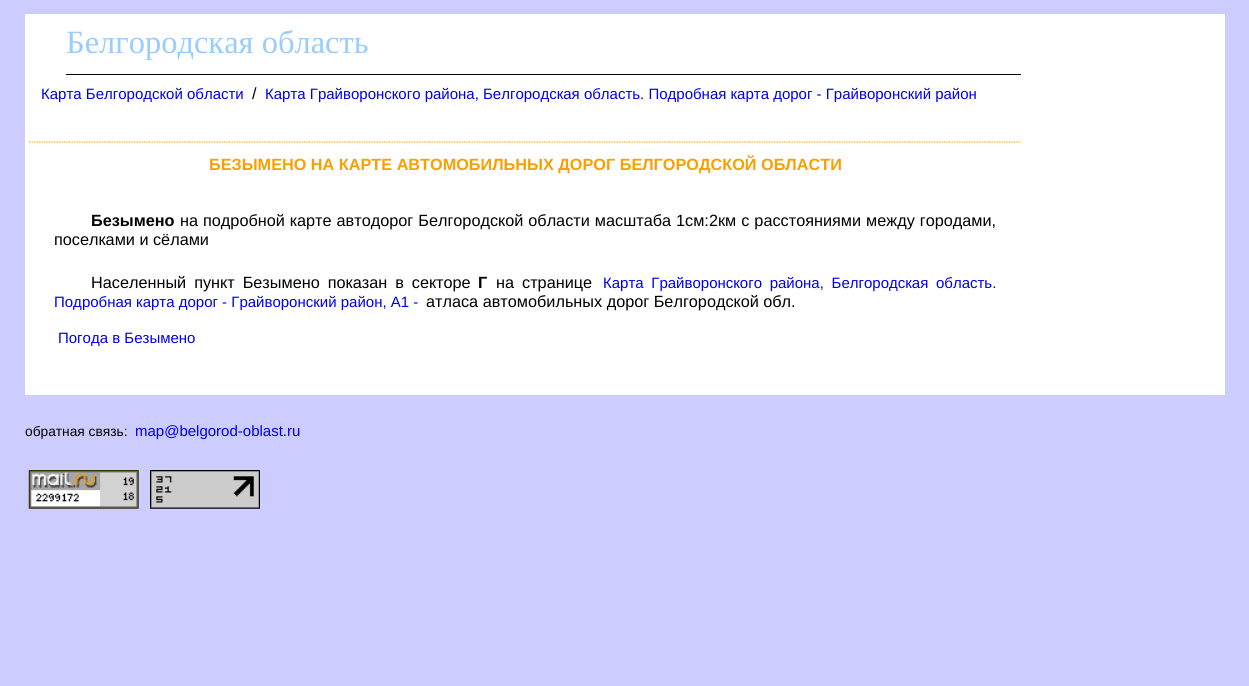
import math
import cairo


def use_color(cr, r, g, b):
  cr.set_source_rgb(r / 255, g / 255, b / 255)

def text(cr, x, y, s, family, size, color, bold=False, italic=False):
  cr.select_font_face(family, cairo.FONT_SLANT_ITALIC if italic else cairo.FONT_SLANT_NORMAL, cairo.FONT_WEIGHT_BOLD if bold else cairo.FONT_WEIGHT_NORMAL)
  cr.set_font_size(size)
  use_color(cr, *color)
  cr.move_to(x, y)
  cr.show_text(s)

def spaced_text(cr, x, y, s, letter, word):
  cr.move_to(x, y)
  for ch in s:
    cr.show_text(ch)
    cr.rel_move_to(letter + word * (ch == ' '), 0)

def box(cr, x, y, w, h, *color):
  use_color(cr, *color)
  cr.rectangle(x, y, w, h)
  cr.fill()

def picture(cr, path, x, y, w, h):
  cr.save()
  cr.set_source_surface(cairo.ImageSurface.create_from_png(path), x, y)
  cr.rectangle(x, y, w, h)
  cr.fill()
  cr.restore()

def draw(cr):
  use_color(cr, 204, 204, 255)
  cr.paint()
  box(cr, 25, 14, 1200, 381, 255, 255, 255)
  box(cr, 66, 74, 955, 1, 0, 0, 0)
  cr.new_path()
  cr.move_to(29, 142)
  cr.line_to(1021, 142)
  use_color(cr, 255, 165, 0)
  cr.set_line_width(1.2)
  cr.set_dash([1.25, 1.25])
  cr.stroke()
  picture(cr, "img_01.png", 28, 470, 111, 39)
  picture(cr, "img_02.png", 150, 470, 110, 39)
  text(cr, 66, 53, "Белгородская область", "Liberation Serif", 32.5, (153, 204, 255))
  text(cr, 41, 99, "Карта Белгородской области", "Liberation Sans", 15, (0, 0, 238))
  text(cr, 252, 99, "/", "Liberation Sans", 16.25, (0, 0, 0))
  text(cr, 265, 99, "Карта Грайворонского района, Белгородская область. Подробная карта дорог - Грайворонский район", "Liberation Sans", 15, (0, 0, 238))
  text(cr, 209, 170, "БЕЗЫМЕНО НА КАРТЕ АВТОМОБИЛЬНЫХ ДОРОГ БЕЛГОРОДСКОЙ ОБЛАСТИ", "Liberation Sans", 16.25, (249, 160, 0), bold=True)
  text(cr, 91, 226, "Безымено", "Liberation Sans", 16.25, (0, 0, 0), bold=True)
  cr.select_font_face("Liberation Sans")
  spaced_text(cr, 180, 226, "на подробной карте автодорог Белгородской области масштаба 1см:2км с расстояниями между городами,", 0, 0.5)
  text(cr, 54, 245, "поселками и сёлами", "Liberation Sans", 16.25, (0, 0, 0))
  spaced_text(cr, 91, 288, "Населенный пункт Безымено показан в секторе", 0, 3.5)
  text(cr, 478, 288, "Г", "Liberation Sans", 16.25, (0, 0, 0), bold=True)
  cr.select_font_face("Liberation Sans")
  spaced_text(cr, 496, 288, "на странице", 0, 3.5)
  cr.set_font_size(15)
  use_color(cr, 0, 0, 238)
  spaced_text(cr, 603, 288, "Карта Грайворонского района, Белгородская область.", 0, 3.5)
  text(cr, 54, 307, "Подробная карта дорог - Грайворонский район, A1 -", "Liberation Sans", 15, (0, 0, 238))
  text(cr, 426, 307, "атласа автомобильных дорог Белгородской обл.", "Liberation Sans", 16.25, (0, 0, 0))
  text(cr, 58, 343, "Погода в Безымено", "Liberation Sans", 15, (0, 0, 238))
  text(cr, 25, 436, "обратная связь:", "Liberation Sans", 13.75, (0, 0, 0))
  text(cr, 135, 436, "map@belgorod-oblast.ru", "Liberation Sans", 15, (0, 0, 238))


surface = cairo.ImageSurface(cairo.FORMAT_RGB24, 1249, 686)
cr = cairo.Context(surface)
options = cairo.FontOptions()
options.set_hint_metrics(cairo.HINT_METRICS_OFF)
options.set_hint_style(cairo.HINT_STYLE_NONE)
cr.set_font_options(options)
cr.set_miter_limit(4)
draw(cr)
surface.write_to_png("out.png")
